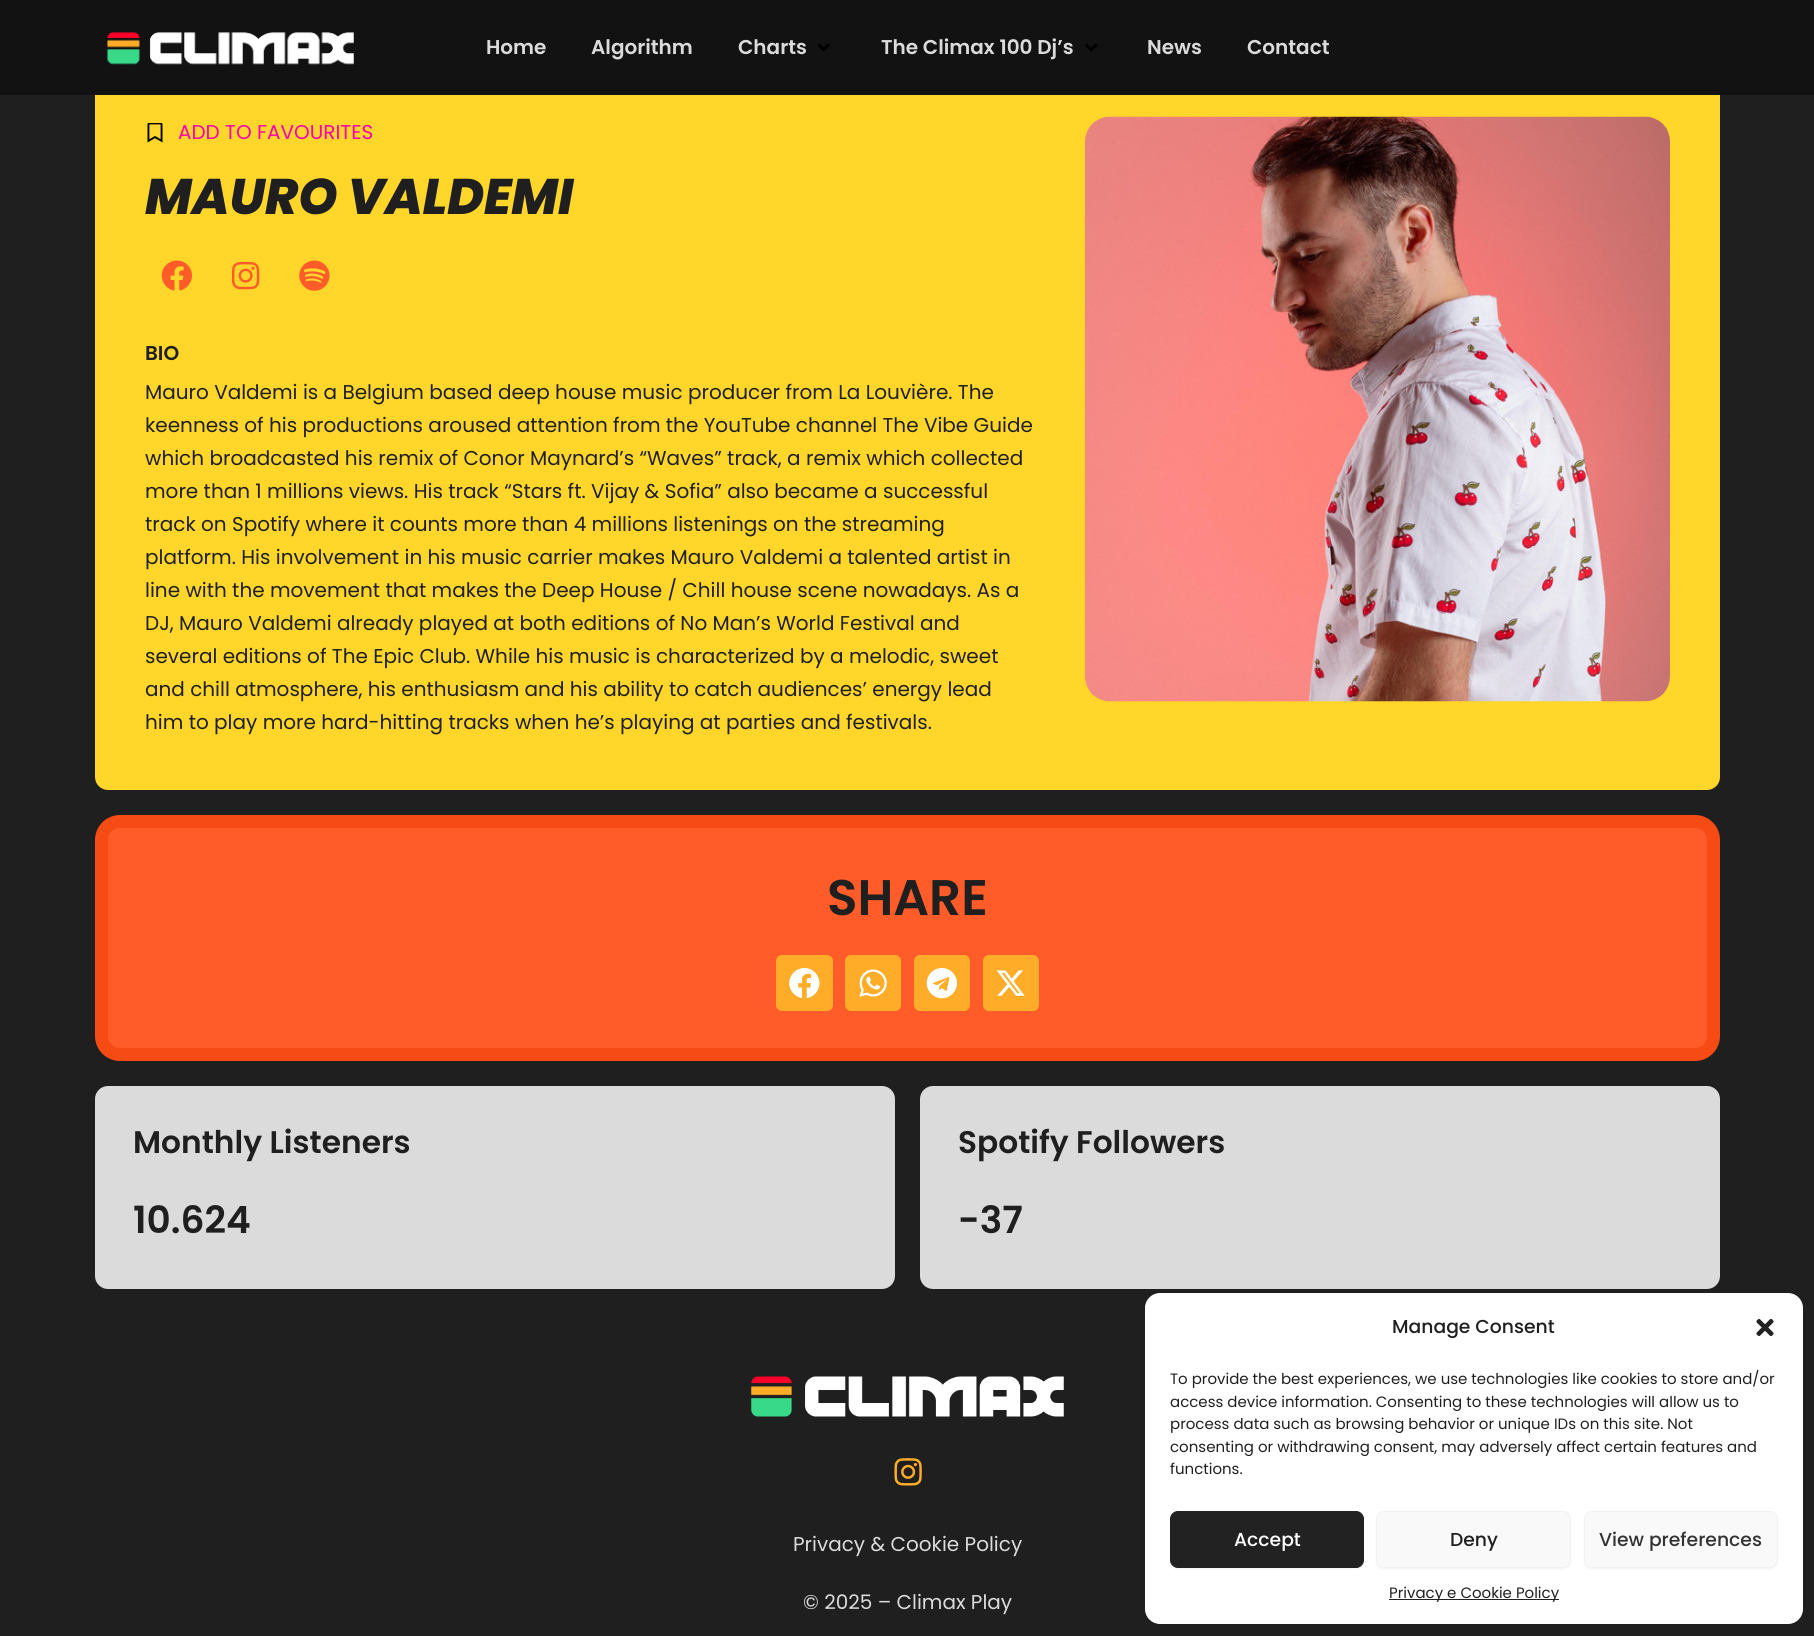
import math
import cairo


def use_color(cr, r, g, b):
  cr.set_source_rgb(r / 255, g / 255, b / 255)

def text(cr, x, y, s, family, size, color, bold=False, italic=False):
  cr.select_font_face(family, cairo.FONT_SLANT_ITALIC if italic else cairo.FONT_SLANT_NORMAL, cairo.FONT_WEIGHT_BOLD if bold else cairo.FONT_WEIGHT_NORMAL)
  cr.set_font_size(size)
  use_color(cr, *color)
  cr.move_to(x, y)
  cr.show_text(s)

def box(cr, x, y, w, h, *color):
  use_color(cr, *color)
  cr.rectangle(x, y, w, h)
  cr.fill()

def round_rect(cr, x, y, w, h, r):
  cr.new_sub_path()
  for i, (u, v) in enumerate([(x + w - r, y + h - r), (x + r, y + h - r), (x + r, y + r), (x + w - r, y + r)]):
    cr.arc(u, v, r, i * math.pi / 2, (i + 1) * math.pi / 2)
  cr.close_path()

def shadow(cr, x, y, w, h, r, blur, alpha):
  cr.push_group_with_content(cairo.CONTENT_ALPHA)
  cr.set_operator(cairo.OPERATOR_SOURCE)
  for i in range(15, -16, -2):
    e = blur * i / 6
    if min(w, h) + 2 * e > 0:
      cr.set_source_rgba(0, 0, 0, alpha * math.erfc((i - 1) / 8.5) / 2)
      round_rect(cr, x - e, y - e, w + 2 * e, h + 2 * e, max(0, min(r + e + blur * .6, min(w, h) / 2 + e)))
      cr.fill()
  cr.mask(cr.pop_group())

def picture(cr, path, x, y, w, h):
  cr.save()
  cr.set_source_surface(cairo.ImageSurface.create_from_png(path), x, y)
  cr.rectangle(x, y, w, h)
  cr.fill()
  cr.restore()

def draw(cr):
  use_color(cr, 31, 31, 31)
  cr.paint()
  use_color(cr, 255, 214, 41)
  round_rect(cr, 95, 66, 1625, 724, 13)
  cr.fill()
  box(cr, 0, 0, 1814, 95, 18, 18, 18)
  picture(cr, "img_01.png", 107, 32, 247, 33)
  picture(cr, "img_02.png", 817, 43, 13, 9)
  picture(cr, "img_03.png", 1085, 43, 13, 9)
  picture(cr, "img_04.png", 147, 123, 16, 20)
  picture(cr, "img_05.png", 161, 260, 31, 31)
  picture(cr, "img_06.png", 231, 261, 29, 29)
  picture(cr, "img_07.png", 299, 260, 31, 31)
  picture(cr, "img_08.png", 1085, 116, 585, 586)
  use_color(cr, 255, 92, 41)
  round_rect(cr, 101.5, 821.5, 1612, 233, 18.5)
  cr.fill_preserve()
  use_color(cr, 246, 75, 21)
  cr.set_line_width(13)
  cr.stroke()
  use_color(cr, 255, 172, 40)
  round_rect(cr, 776, 955, 57, 56, 6)
  cr.fill()
  picture(cr, "img_09.png", 789, 968, 31, 30)
  round_rect(cr, 845, 955, 56, 56, 6)
  cr.fill()
  picture(cr, "img_10.png", 859, 969, 28, 28)
  round_rect(cr, 914, 955, 56, 56, 6)
  cr.fill()
  picture(cr, "img_11.png", 926, 968, 31, 31)
  round_rect(cr, 983, 955, 56, 56, 6)
  cr.fill()
  picture(cr, "img_12.png", 996, 970, 29, 26)
  use_color(cr, 219, 219, 219)
  round_rect(cr, 95, 1086, 800, 203, 13)
  cr.fill()
  round_rect(cr, 920, 1086, 800, 203, 13)
  cr.fill()
  picture(cr, "img_13.png", 751, 1376, 313, 41)
  picture(cr, "img_14.png", 894, 1458, 28, 28)
  use_color(cr, 255, 255, 255)
  round_rect(cr, 1145, 1293, 658, 331, 15)
  cr.fill()
  picture(cr, "img_15.png", 1756, 1318, 18, 18)
  use_color(cr, 0, 0, 0)
  shadow(cr, 1170, 1513, 194, 56, 8, 1, 0.05)
  use_color(cr, 34, 34, 34)
  round_rect(cr, 1170.5, 1511.5, 193, 56, 7.5)
  cr.fill_preserve()
  cr.set_line_width(1)
  cr.stroke()
  use_color(cr, 0, 0, 0)
  shadow(cr, 1376, 1513, 195, 56, 8, 1, 0.05)
  use_color(cr, 249, 249, 249)
  round_rect(cr, 1376.5, 1511.5, 194, 56, 7.5)
  cr.fill_preserve()
  use_color(cr, 242, 242, 242)
  cr.stroke()
  use_color(cr, 0, 0, 0)
  shadow(cr, 1584, 1513, 194, 56, 8, 1, 0.05)
  use_color(cr, 249, 249, 249)
  round_rect(cr, 1584.5, 1511.5, 193, 56, 7.5)
  cr.fill_preserve()
  use_color(cr, 242, 242, 242)
  cr.stroke()
  box(cr, 1389, 1599, 170, 1, 34, 34, 34)
  text(cr, 486, 54, "Home", "Poppins SemiBold", 20, (219, 219, 219))
  text(cr, 591, 54, "Algorithm", "Poppins SemiBold", 20, (219, 219, 219))
  text(cr, 738, 54, "Charts", "Poppins SemiBold", 20, (219, 219, 219))
  text(cr, 881, 54, "The Climax 100 Dj’s", "Poppins SemiBold", 20, (219, 219, 219))
  text(cr, 1147, 54, "News", "Poppins SemiBold", 20, (219, 219, 219))
  text(cr, 1247, 54, "Contact", "Poppins SemiBold", 20, (219, 219, 219))
  text(cr, 178, 139, "ADD TO FAVOURITES", "Poppins", 20, (255, 0, 181))
  text(cr, 145, 214, "MAURO VALDEMI", "Poppins ExtraBold", 50, (31, 31, 31), italic=True)
  text(cr, 145, 360, "BIO", "Poppins SemiBold", 20, (31, 31, 31))
  text(cr, 145, 399, "Mauro Valdemi is a Belgium based deep house music producer from La Louvière. The", "Poppins", 20, (31, 31, 31))
  text(cr, 145, 432, "keenness of his productions aroused attention from the YouTube channel The Vibe Guide", "Poppins", 20, (31, 31, 31))
  text(cr, 145, 465, "which broadcasted his remix of Conor Maynard’s “Waves” track, a remix which collected", "Poppins", 20, (31, 31, 31))
  text(cr, 145, 498, "more than 1 millions views. His track “Stars ft. Vijay & Sofia” also became a successful", "Poppins", 20, (31, 31, 31))
  text(cr, 145, 531, "track on Spotify where it counts more than 4 millions listenings on the streaming", "Poppins", 20, (31, 31, 31))
  text(cr, 145, 564, "platform. His involvement in his music carrier makes Mauro Valdemi a talented artist in", "Poppins", 20, (31, 31, 31))
  text(cr, 145, 597, "line with the movement that makes the Deep House / Chill house scene nowadays. As a", "Poppins", 20, (31, 31, 31))
  text(cr, 145, 630, "DJ, Mauro Valdemi already played at both editions of No Man’s World Festival and", "Poppins", 20, (31, 31, 31))
  text(cr, 145, 663, "several editions of The Epic Club. While his music is characterized by a melodic, sweet", "Poppins", 20, (31, 31, 31))
  text(cr, 145, 696, "and chill atmosphere, his enthusiasm and his ability to catch audiences’ energy lead", "Poppins", 20, (31, 31, 31))
  text(cr, 145, 729, "him to play more hard-hitting tracks when he’s playing at parties and festivals.", "Poppins", 20, (31, 31, 31))
  text(cr, 827, 915, "SHARE", "Poppins SemiBold", 50, (31, 31, 31))
  text(cr, 133, 1153, "Monthly Listeners", "Poppins SemiBold", 31.25, (31, 31, 31))
  text(cr, 133, 1233, "10.624", "Poppins SemiBold", 37.5, (31, 31, 31))
  text(cr, 958, 1153, "Spotify Followers", "Poppins SemiBold", 31.25, (31, 31, 31))
  text(cr, 958, 1233, "-37", "Poppins SemiBold", 37.5, (31, 31, 31))
  text(cr, 793, 1551, "Privacy & Cookie Policy", "Poppins", 20, (219, 219, 219))
  text(cr, 803, 1609, "© 2025 – Climax Play", "Poppins", 20, (219, 219, 219))
  text(cr, 1392, 1333, "Manage Consent", "Poppins Medium", 18.75, (31, 31, 31))
  text(cr, 1170, 1384, "To provide the best experiences, we use technologies like cookies to store and/or", "Poppins", 15, (31, 31, 31))
  text(cr, 1170, 1407, "access device information. Consenting to these technologies will allow us to", "Poppins", 15, (31, 31, 31))
  text(cr, 1170, 1429, "process data such as browsing behavior or unique IDs on this site. Not", "Poppins", 15, (31, 31, 31))
  text(cr, 1170, 1452, "consenting or withdrawing consent, may adversely affect certain features and", "Poppins", 15, (31, 31, 31))
  text(cr, 1170, 1474, "functions.", "Poppins", 15, (31, 31, 31))
  text(cr, 1234, 1546, "Accept", "Poppins Medium", 18.75, (255, 255, 255))
  text(cr, 1450, 1546, "Deny", "Poppins Medium", 18.75, (31, 31, 31))
  text(cr, 1599, 1546, "View preferences", "Poppins Medium", 18.75, (51, 51, 51))
  text(cr, 1389, 1598, "Privacy e Cookie Policy", "Poppins", 15, (31, 31, 31))


surface = cairo.ImageSurface(cairo.FORMAT_RGB24, 1814, 1636)
cr = cairo.Context(surface)
options = cairo.FontOptions()
options.set_hint_metrics(cairo.HINT_METRICS_OFF)
options.set_hint_style(cairo.HINT_STYLE_NONE)
cr.set_font_options(options)
cr.set_miter_limit(4)
draw(cr)
surface.write_to_png("out.png")
